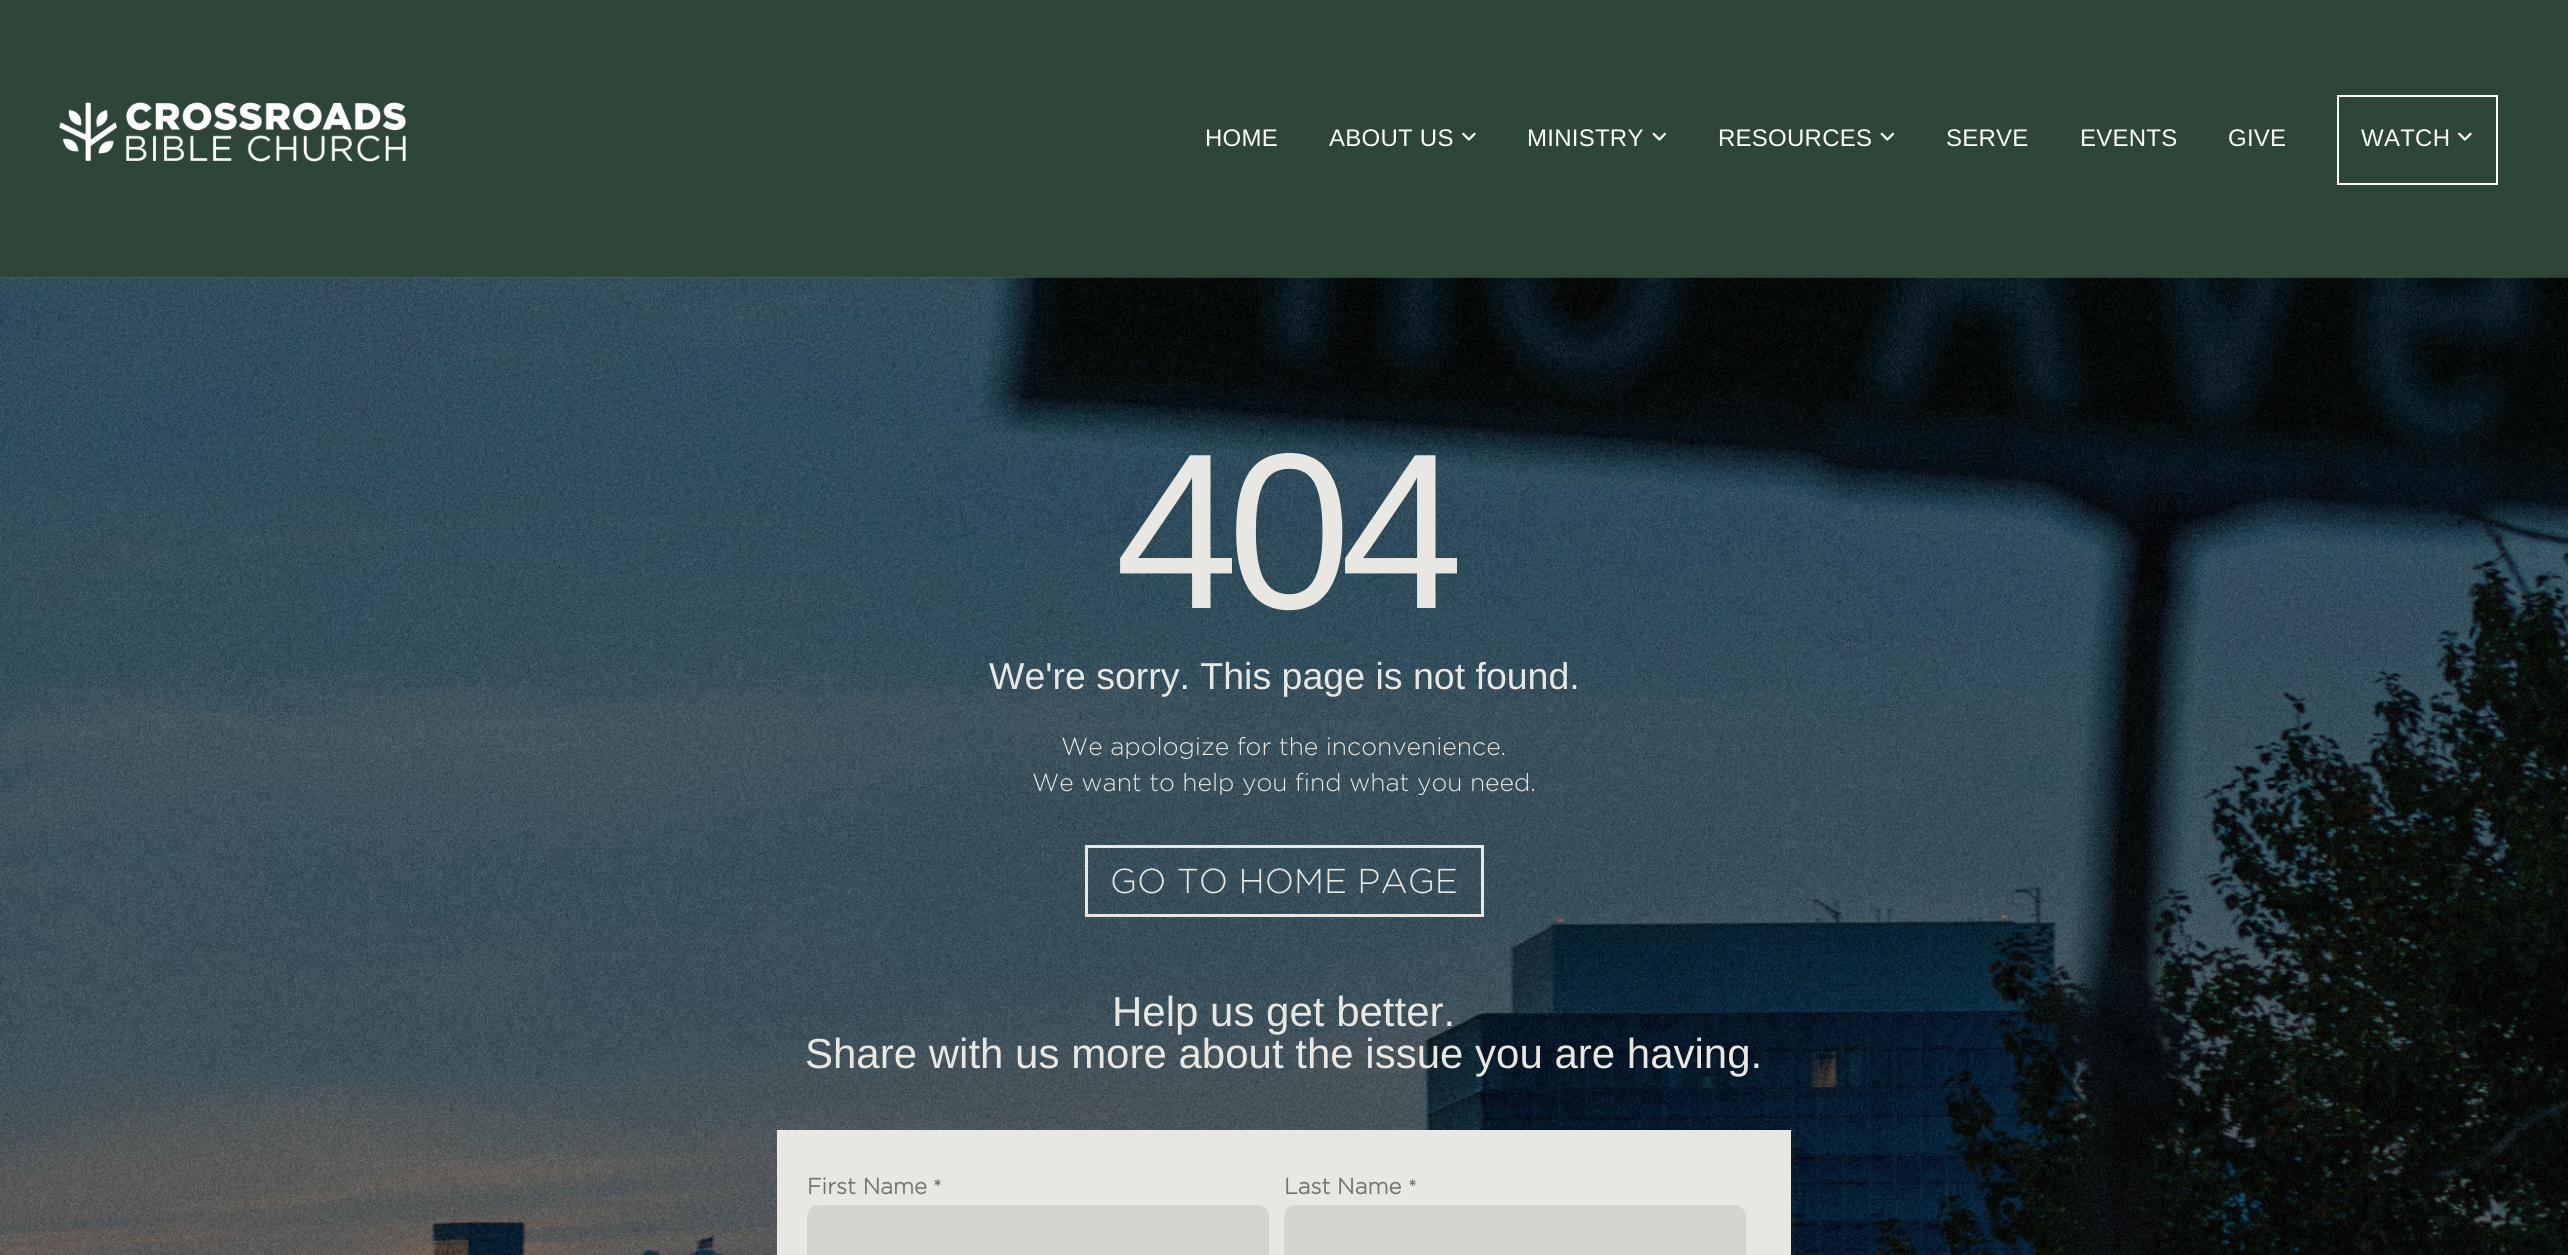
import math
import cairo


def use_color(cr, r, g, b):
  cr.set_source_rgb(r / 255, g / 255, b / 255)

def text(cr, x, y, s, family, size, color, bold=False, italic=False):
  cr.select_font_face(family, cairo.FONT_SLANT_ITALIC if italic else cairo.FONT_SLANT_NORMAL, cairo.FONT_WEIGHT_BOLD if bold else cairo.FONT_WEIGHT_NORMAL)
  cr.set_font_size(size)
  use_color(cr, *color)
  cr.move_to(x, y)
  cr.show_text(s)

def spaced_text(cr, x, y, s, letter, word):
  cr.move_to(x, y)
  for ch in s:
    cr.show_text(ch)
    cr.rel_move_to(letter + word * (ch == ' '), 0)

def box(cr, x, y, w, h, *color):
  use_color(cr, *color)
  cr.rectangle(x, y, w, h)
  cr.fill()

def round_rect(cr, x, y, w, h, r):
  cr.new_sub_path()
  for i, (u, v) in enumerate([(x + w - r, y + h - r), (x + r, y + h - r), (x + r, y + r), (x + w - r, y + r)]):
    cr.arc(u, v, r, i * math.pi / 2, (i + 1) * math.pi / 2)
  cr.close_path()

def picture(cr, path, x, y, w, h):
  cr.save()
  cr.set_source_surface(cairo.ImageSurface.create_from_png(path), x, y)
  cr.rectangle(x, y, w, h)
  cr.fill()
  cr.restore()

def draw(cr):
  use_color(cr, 46, 70, 56)
  cr.paint()
  picture(cr, "img_01.png", 59, 102, 347, 60)
  picture(cr, "img_02.png", 1462, 132, 14, 9)
  picture(cr, "img_03.png", 1652, 132, 15, 9)
  picture(cr, "img_03.png", 1880, 132, 15, 9)
  cr.rectangle(2338, 96, 159, 88)
  use_color(cr, 255, 255, 255)
  cr.stroke()
  picture(cr, "img_02.png", 2458, 132, 14, 9)
  picture(cr, "img_04.png", 0, 277, 2568, 978)
  cr.rectangle(1086.5, 846.5, 396, 69)
  use_color(cr, 232, 231, 226)
  cr.set_line_width(3)
  cr.stroke()
  box(cr, 777, 1130, 1014, 125, 232, 231, 226)
  use_color(cr, 213, 213, 208)
  round_rect(cr, 807, 1205, 462, 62, 12)
  cr.fill()
  round_rect(cr, 1284, 1205, 462, 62, 12)
  cr.fill()
  cr.select_font_face("Liberation Sans")
  cr.set_font_size(24)
  use_color(cr, 255, 255, 255)
  spaced_text(cr, 1205, 146, "HOME", 0.25, 0)
  spaced_text(cr, 1329, 146, "ABOUT US", 0.25, 0)
  spaced_text(cr, 1527, 146, "MINISTRY", 0.25, 0)
  spaced_text(cr, 1718, 146, "RESOURCES", 0.25, 0)
  spaced_text(cr, 1946, 146, "SERVE", 0.25, 0)
  spaced_text(cr, 2080, 146, "EVENTS", 0.25, 0)
  spaced_text(cr, 2228, 146, "GIVE", 0.25, 0)
  spaced_text(cr, 2361, 146, "WATCH", 0.25, 0)
  cr.set_font_size(222)
  use_color(cr, 232, 231, 226)
  spaced_text(cr, 1115, 608, "404", -11, 0)
  text(cr, 989, 689, "We're sorry. This page is not found.", "Liberation Sans", 37.5, (232, 231, 226))
  text(cr, 1061, 755, "We apologize for the inconvenience.", "Gotham Light", 24.75, (232, 231, 226))
  text(cr, 1032, 791, "We want to help you find what you need.", "Gotham Light", 24.75, (232, 231, 226))
  text(cr, 1110, 893, "GO TO HOME PAGE", "Gotham Light", 34.5, (232, 231, 226))
  text(cr, 1112, 1026, "Help us get better.", "Liberation Sans", 42, (232, 231, 226))
  text(cr, 805, 1068, "Share with us more about the issue you are having.", "Liberation Sans", 42, (232, 231, 226))
  text(cr, 807, 1194, "First Name", "Gotham", 22.25, (116, 116, 113), bold=True)
  text(cr, 933, 1194, "*", "Gotham", 20, (116, 116, 113), bold=True)
  text(cr, 1284, 1194, "Last Name", "Gotham", 22.25, (116, 116, 113), bold=True)
  text(cr, 1408, 1194, "*", "Gotham", 20, (116, 116, 113), bold=True)


surface = cairo.ImageSurface(cairo.FORMAT_RGB24, 2568, 1255)
cr = cairo.Context(surface)
options = cairo.FontOptions()
options.set_hint_metrics(cairo.HINT_METRICS_OFF)
options.set_hint_style(cairo.HINT_STYLE_NONE)
cr.set_font_options(options)
cr.set_miter_limit(4)
draw(cr)
surface.write_to_png("out.png")
